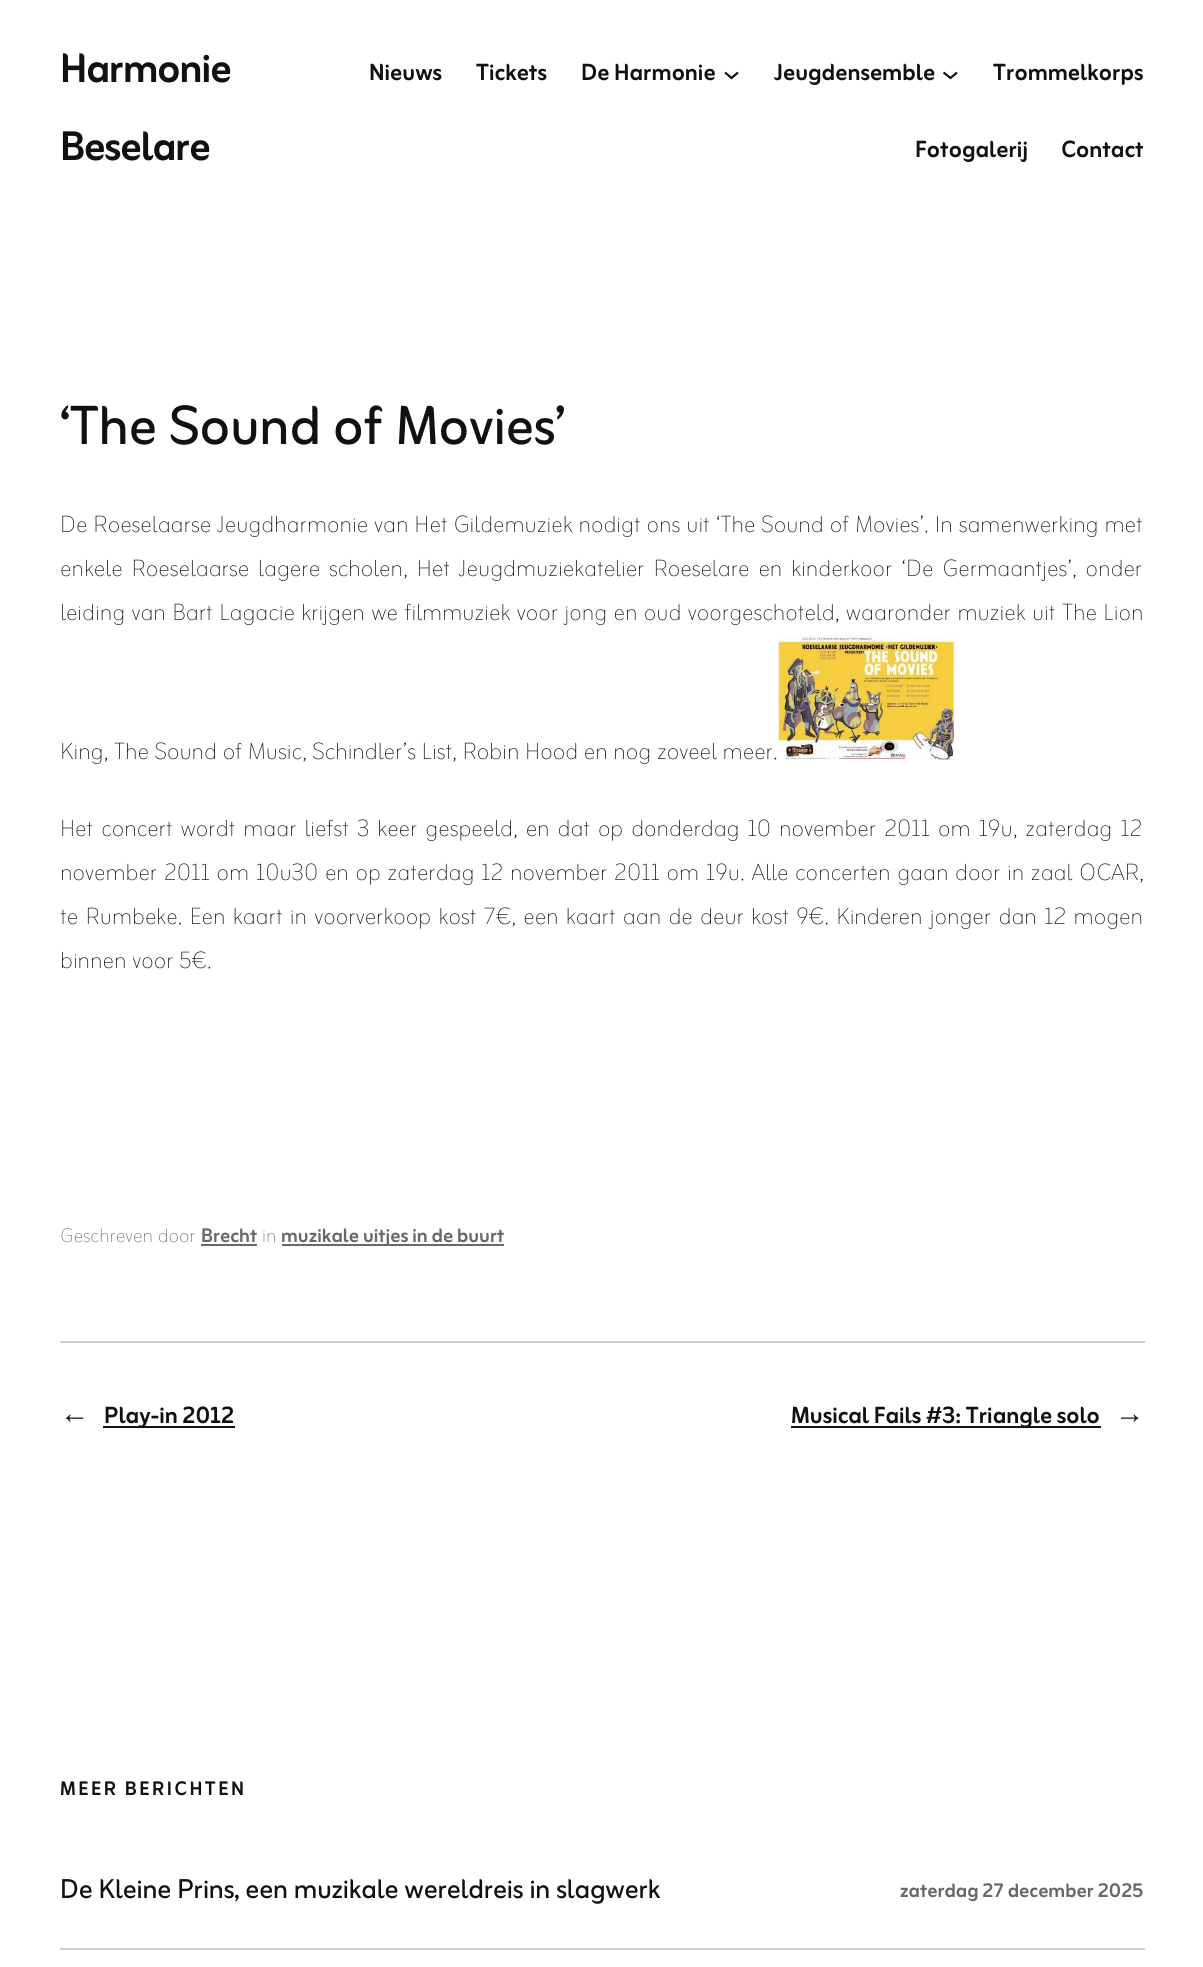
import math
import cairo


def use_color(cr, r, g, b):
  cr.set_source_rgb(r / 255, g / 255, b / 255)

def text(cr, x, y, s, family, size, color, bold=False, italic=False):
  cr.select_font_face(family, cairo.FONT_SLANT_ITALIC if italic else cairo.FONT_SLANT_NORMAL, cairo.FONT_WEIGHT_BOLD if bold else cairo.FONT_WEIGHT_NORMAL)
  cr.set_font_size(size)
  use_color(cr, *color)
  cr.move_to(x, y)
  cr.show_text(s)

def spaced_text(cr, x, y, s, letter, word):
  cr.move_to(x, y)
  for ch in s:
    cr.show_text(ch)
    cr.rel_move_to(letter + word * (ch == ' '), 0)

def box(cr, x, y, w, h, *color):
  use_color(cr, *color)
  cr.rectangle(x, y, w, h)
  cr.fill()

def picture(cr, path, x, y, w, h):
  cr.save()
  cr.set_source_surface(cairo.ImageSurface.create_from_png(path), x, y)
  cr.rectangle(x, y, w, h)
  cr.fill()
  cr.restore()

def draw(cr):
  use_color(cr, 255, 255, 255)
  cr.paint()
  cr.new_path()
  cr.move_to(725, 72.5)
  cr.line_to(731.5, 78)
  cr.line_to(738, 72.5)
  use_color(cr, 17, 17, 17)
  cr.set_line_width(2.2)
  cr.stroke()
  cr.new_path()
  cr.move_to(943.5, 72.5)
  cr.line_to(950.5, 78)
  cr.line_to(957, 72.5)
  cr.stroke()
  picture(cr, "img_01.png", 778, 635, 176, 125)
  box(cr, 201, 1244, 56, 2, 104, 104, 104)
  box(cr, 282, 1244, 222, 2, 104, 104, 104)
  box(cr, 60, 1341, 1085, 2, 207, 207, 207)
  box(cr, 103, 1426, 132, 2, 17, 17, 17)
  box(cr, 791, 1426, 310, 2, 17, 17, 17)
  box(cr, 60, 1948, 1085, 2, 207, 207, 207)
  cr.select_font_face("Zain", cairo.FONT_SLANT_NORMAL, cairo.FONT_WEIGHT_BOLD)
  cr.set_font_size(51.5)
  use_color(cr, 17, 17, 17)
  spaced_text(cr, 60, 82, "Harmonie", -1, 0)
  spaced_text(cr, 60, 160, "Beselare", -1, 0)
  text(cr, 369, 80, "Nieuws", "Zain", 29.25, (17, 17, 17), bold=True)
  text(cr, 476, 80, "Tickets", "Zain", 29.25, (17, 17, 17), bold=True)
  text(cr, 581, 80, "De Harmonie", "Zain", 29.25, (17, 17, 17), bold=True)
  text(cr, 774, 80, "Jeugdensemble", "Zain", 29.25, (17, 17, 17), bold=True)
  text(cr, 993, 80, "Trommelkorps", "Zain", 29.25, (17, 17, 17), bold=True)
  text(cr, 915, 157, "Fotogalerij", "Zain", 29.25, (17, 17, 17), bold=True)
  text(cr, 1061, 157, "Contact", "Zain", 29.25, (17, 17, 17), bold=True)
  cr.select_font_face("Zain")
  cr.set_font_size(68.75)
  spaced_text(cr, 60, 444, "‘The Sound of Movies’", -0.18, 0)
  cr.select_font_face("Zain ExtraLight")
  cr.set_font_size(29.25)
  spaced_text(cr, 60, 532, "De Roeselaarse Jeugdharmonie van Het Gildemuziek nodigt ons uit ‘The Sound of Movies’. In samenwerking met", 0, 0.25)
  spaced_text(cr, 60, 576, "enkele Roeselaarse lagere scholen, Het Jeugdmuziekatelier Roeselare en kinderkoor ‘De Germaantjes’, onder", 0, 3.25)
  spaced_text(cr, 60, 620, "leiding van Bart Lagacie krijgen we filmmuziek voor jong en oud voorgeschoteld, waaronder muziek uit The Lion", 0, 0.75)
  text(cr, 60, 759, "King, The Sound of Music, Schindler’s List, Robin Hood en nog zoveel meer.", "Zain ExtraLight", 29.25, (17, 17, 17))
  spaced_text(cr, 60, 836, "Het concert wordt maar liefst 3 keer gespeeld, en dat op donderdag 10 november 2011 om 19u, zaterdag 12", 0, 2.25)
  spaced_text(cr, 60, 880, "november 2011 om 10u30 en op zaterdag 12 november 2011 om 19u. Alle concerten gaan door in zaal OCAR,", 0, 1)
  spaced_text(cr, 60, 924, "te Rumbeke. Een kaart in voorverkoop kost 7€, een kaart aan de deur kost 9€. Kinderen jonger dan 12 mogen", 0, 1.6)
  text(cr, 60, 968, "binnen voor 5€.", "Zain ExtraLight", 29.25, (17, 17, 17))
  text(cr, 60, 1242, "Geschreven door", "Zain ExtraLight", 24.5, (104, 104, 104))
  text(cr, 201, 1242, "Brecht", "Zain", 24.5, (104, 104, 104), bold=True)
  text(cr, 262, 1242, "in", "Zain ExtraLight", 24.5, (104, 104, 104))
  text(cr, 281, 1242, "muzikale uitjes in de buurt", "Zain", 24.5, (104, 104, 104), bold=True)
  text(cr, 60, 1423, "←", "Liberation Sans", 29.25, (17, 17, 17))
  text(cr, 104, 1423, "Play-in 2012", "Zain", 29.25, (17, 17, 17), bold=True)
  text(cr, 791, 1423, "Musical Fails #3: Triangle solo", "Zain", 29.25, (17, 17, 17), bold=True)
  text(cr, 1115, 1423, "→", "Liberation Sans", 29.25, (17, 17, 17))
  cr.select_font_face("Zain", cairo.FONT_SLANT_NORMAL, cairo.FONT_WEIGHT_BOLD)
  cr.set_font_size(24.5)
  spaced_text(cr, 60, 1795, "MEER BERICHTEN", 2.5, 0)
  cr.select_font_face("Zain")
  cr.set_font_size(34)
  spaced_text(cr, 60, 1898, "De Kleine Prins, een muzikale wereldreis in slagwerk", -0.18, 0)
  text(cr, 900, 1897, "zaterdag 27 december 2025", "Zain", 24.5, (104, 104, 104), bold=True)


surface = cairo.ImageSurface(cairo.FORMAT_RGB24, 1203, 1967)
cr = cairo.Context(surface)
options = cairo.FontOptions()
options.set_hint_metrics(cairo.HINT_METRICS_OFF)
options.set_hint_style(cairo.HINT_STYLE_NONE)
cr.set_font_options(options)
cr.set_miter_limit(4)
draw(cr)
surface.write_to_png("out.png")
